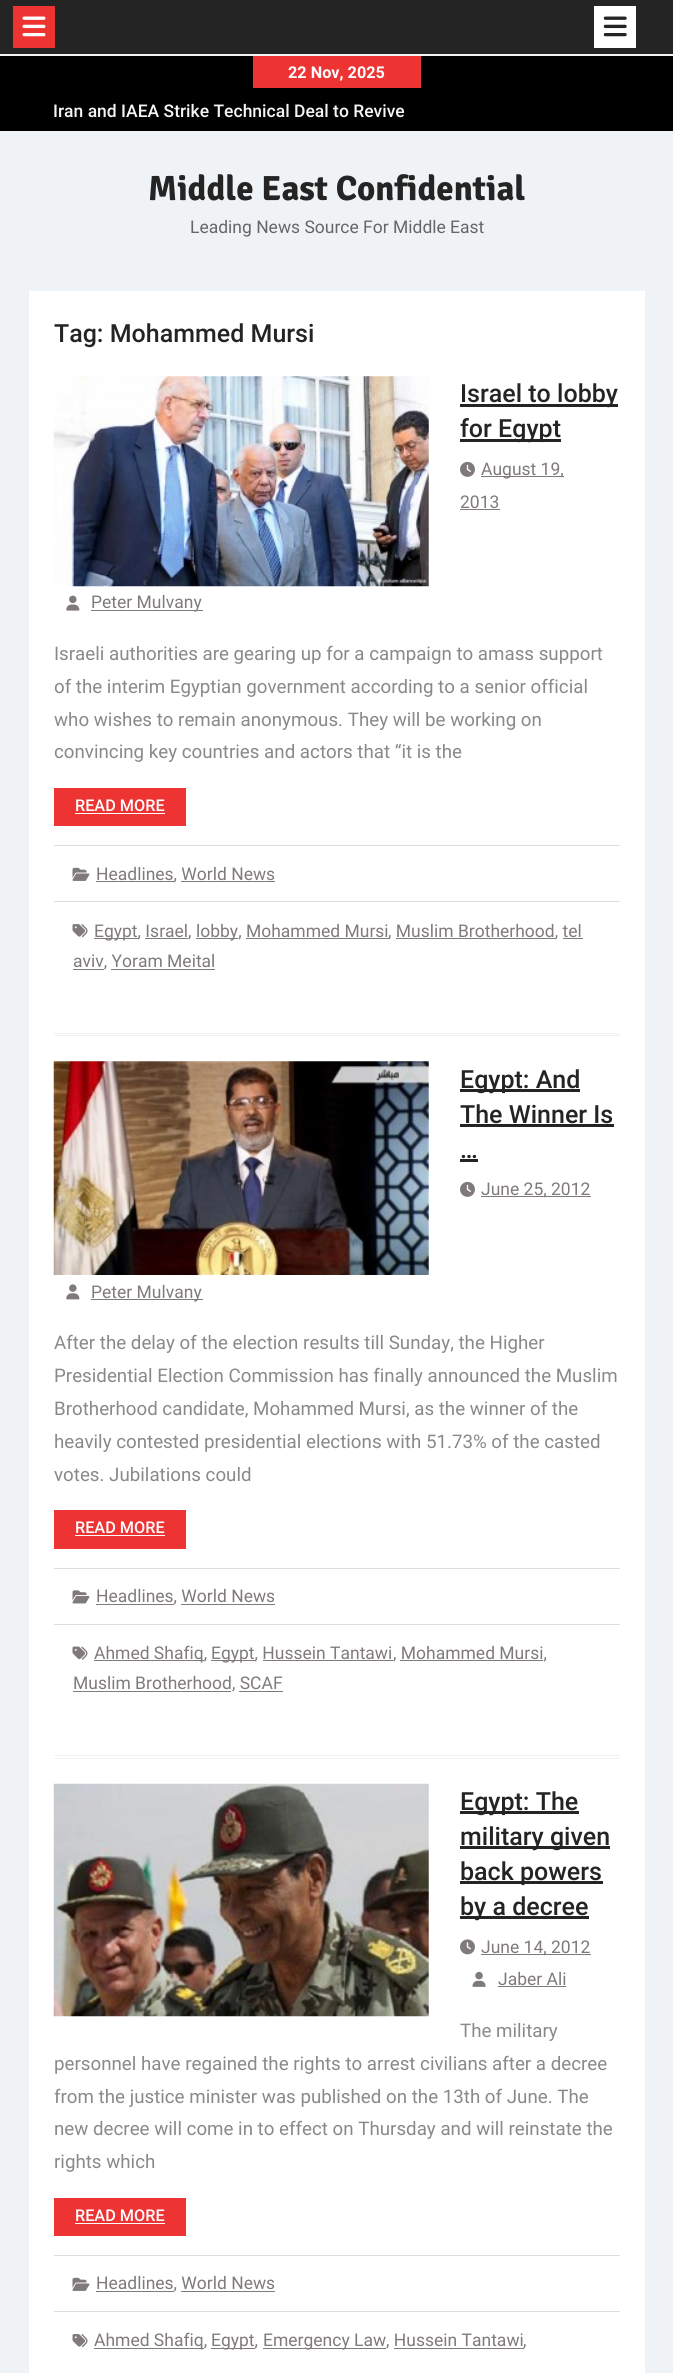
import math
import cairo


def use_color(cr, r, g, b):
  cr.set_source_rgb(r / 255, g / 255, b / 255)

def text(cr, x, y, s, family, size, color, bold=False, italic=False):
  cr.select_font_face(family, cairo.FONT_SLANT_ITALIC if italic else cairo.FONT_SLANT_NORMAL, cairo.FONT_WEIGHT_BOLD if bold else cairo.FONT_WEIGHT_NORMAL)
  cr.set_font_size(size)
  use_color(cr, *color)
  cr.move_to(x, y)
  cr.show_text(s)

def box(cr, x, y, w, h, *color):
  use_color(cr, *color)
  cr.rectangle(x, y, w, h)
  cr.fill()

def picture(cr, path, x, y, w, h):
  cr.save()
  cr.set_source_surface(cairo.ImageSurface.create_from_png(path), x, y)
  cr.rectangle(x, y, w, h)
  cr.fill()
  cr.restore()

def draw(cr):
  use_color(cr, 240, 243, 245)
  cr.paint()
  box(cr, 0, 0, 673, 54, 36, 36, 36)
  box(cr, 13, 6, 42, 42, 238, 51, 51)
  picture(cr, "img_01.png", 22, 16, 24, 21)
  box(cr, 594, 6, 42, 42, 255, 255, 255)
  picture(cr, "img_02.png", 603, 16, 24, 21)
  box(cr, 0, 56, 673, 75, 0, 0, 0)
  box(cr, 253, 56, 168, 32, 238, 51, 51)
  box(cr, 29, 291, 616, 2082, 255, 255, 255)
  box(cr, 54, 1033, 566, 1, 240, 243, 245)
  box(cr, 54, 1035, 566, 1, 240, 243, 245)
  picture(cr, "img_03.png", 53, 376, 376, 211)
  box(cr, 460, 404, 158, 3, 36, 36, 36)
  box(cr, 460, 439, 101, 3, 36, 36, 36)
  picture(cr, "img_04.png", 460, 461, 15, 16)
  box(cr, 481, 476, 83, 1, 128, 122, 122)
  box(cr, 460, 509, 40, 1, 128, 122, 122)
  picture(cr, "img_05.png", 66, 595, 14, 16)
  box(cr, 91, 610, 112, 1, 128, 122, 122)
  box(cr, 54, 788, 132, 38, 238, 51, 51)
  box(cr, 75, 813, 90, 1, 255, 255, 255)
  box(cr, 54, 845, 566, 1, 221, 221, 221)
  picture(cr, "img_06.png", 72, 867, 18, 14)
  box(cr, 96, 881, 78, 1, 128, 122, 122)
  box(cr, 181, 881, 94, 1, 128, 122, 122)
  box(cr, 54, 901, 566, 1, 221, 221, 221)
  picture(cr, "img_07.png", 72, 924, 16, 14)
  box(cr, 94, 938, 44, 1, 128, 122, 122)
  box(cr, 196, 938, 42, 1, 128, 122, 122)
  box(cr, 145, 938, 43, 1, 128, 122, 122)
  box(cr, 246, 938, 143, 1, 128, 122, 122)
  box(cr, 396, 938, 159, 1, 128, 122, 122)
  box(cr, 563, 938, 20, 1, 128, 122, 122)
  box(cr, 73, 969, 31, 1, 128, 122, 122)
  box(cr, 111, 969, 104, 1, 128, 122, 122)
  box(cr, 54, 1755, 566, 1, 240, 243, 245)
  box(cr, 54, 1758, 566, 1, 240, 243, 245)
  picture(cr, "img_08.png", 53, 1061, 376, 214)
  box(cr, 460, 1089, 120, 3, 36, 36, 36)
  box(cr, 460, 1124, 154, 3, 36, 36, 36)
  box(cr, 460, 1159, 18, 3, 36, 36, 36)
  picture(cr, "img_04.png", 460, 1181, 15, 16)
  box(cr, 481, 1196, 110, 1, 128, 122, 122)
  picture(cr, "img_09.png", 66, 1284, 14, 16)
  box(cr, 91, 1299, 112, 1, 128, 122, 122)
  box(cr, 54, 1510, 132, 39, 238, 51, 51)
  box(cr, 75, 1535, 90, 1, 255, 255, 255)
  box(cr, 54, 1568, 566, 1, 221, 221, 221)
  picture(cr, "img_10.png", 72, 1590, 18, 14)
  box(cr, 96, 1604, 78, 1, 128, 122, 122)
  box(cr, 181, 1604, 94, 1, 128, 122, 122)
  box(cr, 54, 1624, 566, 1, 221, 221, 221)
  picture(cr, "img_11.png", 72, 1646, 16, 14)
  box(cr, 94, 1660, 110, 1, 128, 122, 122)
  box(cr, 211, 1660, 44, 1, 128, 122, 122)
  box(cr, 263, 1660, 130, 1, 128, 122, 122)
  box(cr, 400, 1660, 143, 1, 128, 122, 122)
  box(cr, 73, 1691, 158, 1, 128, 122, 122)
  box(cr, 239, 1691, 44, 1, 128, 122, 122)
  picture(cr, "img_12.png", 53, 1783, 376, 234)
  box(cr, 460, 1811, 119, 3, 36, 36, 36)
  box(cr, 460, 1846, 150, 3, 36, 36, 36)
  box(cr, 460, 1881, 143, 3, 36, 36, 36)
  box(cr, 460, 1916, 129, 3, 36, 36, 36)
  picture(cr, "img_13.png", 460, 1939, 15, 16)
  box(cr, 481, 1954, 110, 1, 128, 122, 122)
  picture(cr, "img_14.png", 472, 1971, 14, 16)
  box(cr, 498, 1986, 68, 1, 128, 122, 122)
  box(cr, 54, 2198, 132, 38, 238, 51, 51)
  box(cr, 75, 2223, 90, 1, 255, 255, 255)
  box(cr, 54, 2255, 566, 1, 221, 221, 221)
  picture(cr, "img_06.png", 72, 2277, 18, 14)
  box(cr, 96, 2291, 78, 1, 128, 122, 122)
  box(cr, 181, 2291, 94, 1, 128, 122, 122)
  box(cr, 54, 2311, 566, 1, 221, 221, 221)
  picture(cr, "img_07.png", 72, 2334, 16, 14)
  box(cr, 94, 2348, 110, 1, 128, 122, 122)
  box(cr, 211, 2348, 44, 1, 128, 122, 122)
  box(cr, 263, 2348, 123, 1, 128, 122, 122)
  box(cr, 394, 2348, 130, 1, 128, 122, 122)
  text(cr, 288, 78, "22 Nov, 2025", "Roboto", 16.25, (255, 255, 255), bold=True)
  text(cr, 53, 117, "Iran and IAEA Strike Technical Deal to Revive", "Roboto Medium", 17.5, (245, 245, 245))
  text(cr, 148, 200, "Middle East Confidential", "Signika", 35, (36, 36, 36), bold=True)
  text(cr, 190, 233, "Leading News Source For Middle East", "Roboto", 17.5, (102, 102, 102))
  text(cr, 54, 342, "Tag: Mohammed Mursi", "Roboto Medium", 25, (36, 36, 36))
  text(cr, 460, 402, "Israel to lobby", "Roboto Medium", 25, (36, 36, 36))
  text(cr, 460, 437, "for Egypt", "Roboto Medium", 25, (36, 36, 36))
  text(cr, 481, 475, "August 19,", "Roboto", 17.5, (128, 122, 122))
  text(cr, 460, 508, "2013", "Roboto", 17.5, (128, 122, 122))
  text(cr, 91, 608, "Peter Mulvany", "Roboto", 17.5, (128, 122, 122))
  text(cr, 54, 660, "Israeli authorities are gearing up for a campaign to amass support", "Roboto", 18.75, (136, 137, 138))
  text(cr, 54, 693, "of the interim Egyptian government according to a senior official", "Roboto", 18.75, (136, 137, 138))
  text(cr, 54, 726, "who wishes to remain anonymous. They will be working on", "Roboto", 18.75, (136, 137, 138))
  text(cr, 54, 758, "convincing key countries and actors that “it is the", "Roboto", 18.75, (136, 137, 138))
  text(cr, 75, 811, "READ MORE", "Roboto Medium", 16.25, (255, 255, 255))
  text(cr, 96, 880, "Headlines, World News", "Roboto", 17.5, (128, 122, 122))
  text(cr, 94, 937, "Egypt, Israel,", "Roboto", 17.5, (128, 122, 122))
  text(cr, 196, 937, "lobby, Mohammed Mursi", "Roboto", 17.5, (128, 122, 122))
  text(cr, 388, 937, ", Muslim Brotherhood, tel", "Roboto", 17.5, (128, 122, 122))
  text(cr, 73, 967, "aviv, Yoram Meital", "Roboto", 17.5, (128, 122, 122))
  text(cr, 460, 1088, "Egypt: And", "Roboto Medium", 25, (36, 36, 36))
  text(cr, 460, 1123, "The Winner Is", "Roboto Medium", 25, (36, 36, 36))
  text(cr, 460, 1158, "…", "Roboto Medium", 25, (36, 36, 36))
  text(cr, 481, 1195, "June 25, 2012", "Roboto", 17.5, (128, 122, 122))
  text(cr, 91, 1298, "Peter Mulvany", "Roboto", 17.5, (128, 122, 122))
  text(cr, 54, 1349, "After the delay of the election results till Sunday, the Higher", "Roboto", 18.75, (136, 137, 138))
  text(cr, 54, 1382, "Presidential Election Commission has finally announced the Muslim", "Roboto", 18.75, (136, 137, 138))
  text(cr, 54, 1415, "Brotherhood candidate, Mohammed Mursi, as the winner of the", "Roboto", 18.75, (136, 137, 138))
  text(cr, 54, 1448, "heavily contested presidential elections with 51.73% of the casted", "Roboto", 18.75, (136, 137, 138))
  text(cr, 54, 1481, "votes. Jubilations could", "Roboto", 18.75, (136, 137, 138))
  text(cr, 75, 1533, "READ MORE", "Roboto Medium", 16.25, (255, 255, 255))
  text(cr, 96, 1602, "Headlines, World News", "Roboto", 17.5, (128, 122, 122))
  text(cr, 94, 1659, "Ahmed Shafiq,", "Roboto", 17.5, (128, 122, 122))
  text(cr, 211, 1659, "Egypt, Hussein Tantawi", "Roboto", 17.5, (128, 122, 122))
  text(cr, 393, 1659, ", Mohammed Mursi,", "Roboto", 17.5, (128, 122, 122))
  text(cr, 73, 1689, "Muslim Brotherhood, SCAF", "Roboto", 17.5, (128, 122, 122))
  text(cr, 460, 1810, "Egypt: The", "Roboto Medium", 25, (36, 36, 36))
  text(cr, 460, 1845, "military given", "Roboto Medium", 25, (36, 36, 36))
  text(cr, 460, 1880, "back powers", "Roboto Medium", 25, (36, 36, 36))
  text(cr, 460, 1915, "by a decree", "Roboto Medium", 25, (36, 36, 36))
  text(cr, 481, 1953, "June 14, 2012", "Roboto", 17.5, (128, 122, 122))
  text(cr, 498, 1985, "Jaber Ali", "Roboto", 17.5, (128, 122, 122))
  text(cr, 460, 2037, "The military", "Roboto", 18.75, (136, 137, 138))
  text(cr, 54, 2070, "personnel have regained the rights to arrest civilians after a decree", "Roboto", 18.75, (136, 137, 138))
  text(cr, 54, 2103, "from the justice minister was published on the 13th of June. The", "Roboto", 18.75, (136, 137, 138))
  text(cr, 54, 2135, "new decree will come in to effect on Thursday and will reinstate the", "Roboto", 18.75, (136, 137, 138))
  text(cr, 54, 2168, "rights which", "Roboto", 18.75, (136, 137, 138))
  text(cr, 75, 2221, "READ MORE", "Roboto Medium", 16.25, (255, 255, 255))
  text(cr, 96, 2289, "Headlines, World News", "Roboto", 17.5, (128, 122, 122))
  text(cr, 94, 2346, "Ahmed Shafiq,", "Roboto", 17.5, (128, 122, 122))
  text(cr, 211, 2346, "Egypt,", "Roboto", 17.5, (128, 122, 122))
  text(cr, 263, 2346, "Emergency Law, Hussein Tantawi", "Roboto", 17.5, (128, 122, 122))
  text(cr, 523, 2346, ",", "Roboto", 17.5, (128, 122, 122))


surface = cairo.ImageSurface(cairo.FORMAT_RGB24, 673, 2373)
cr = cairo.Context(surface)
options = cairo.FontOptions()
options.set_hint_metrics(cairo.HINT_METRICS_OFF)
options.set_hint_style(cairo.HINT_STYLE_NONE)
cr.set_font_options(options)
cr.set_miter_limit(4)
draw(cr)
surface.write_to_png("out.png")
